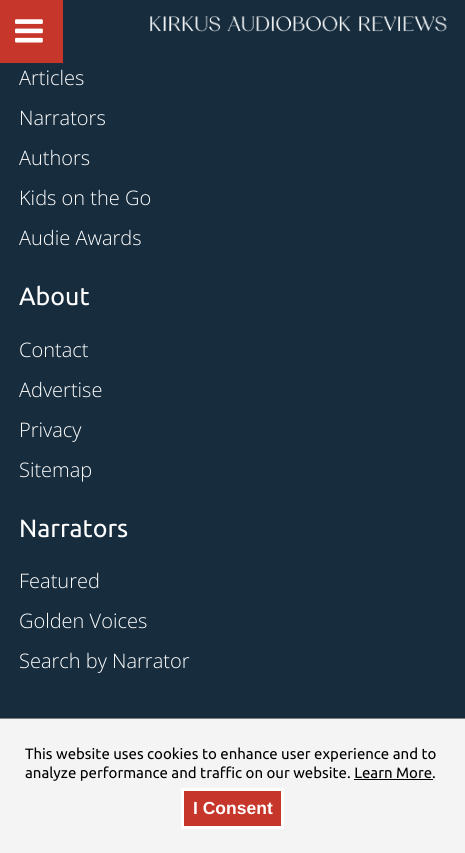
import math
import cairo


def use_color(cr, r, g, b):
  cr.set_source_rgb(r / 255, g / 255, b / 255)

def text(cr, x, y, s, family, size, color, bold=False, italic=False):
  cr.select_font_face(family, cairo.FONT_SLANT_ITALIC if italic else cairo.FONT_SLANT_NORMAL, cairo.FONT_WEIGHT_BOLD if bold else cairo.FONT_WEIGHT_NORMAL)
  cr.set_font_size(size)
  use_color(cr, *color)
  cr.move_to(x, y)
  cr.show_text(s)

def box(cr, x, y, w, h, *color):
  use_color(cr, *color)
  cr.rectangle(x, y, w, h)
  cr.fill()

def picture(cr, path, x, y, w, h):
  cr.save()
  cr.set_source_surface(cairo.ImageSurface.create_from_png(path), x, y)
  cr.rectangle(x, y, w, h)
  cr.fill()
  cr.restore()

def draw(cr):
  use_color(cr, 23, 45, 62)
  cr.paint()
  box(cr, 0, 0, 63, 63, 199, 54, 42)
  picture(cr, "img_01.png", 15, 19, 28, 24)
  picture(cr, "img_02.png", 150, 16, 297, 16)
  box(cr, 0, 719, 465, 134, 244, 244, 244)
  box(cr, 0, 718, 465, 1, 128, 128, 128)
  box(cr, 354, 779, 79, 1, 0, 0, 0)
  use_color(cr, 199, 54, 42)
  cr.rectangle(182.5, 789.5, 100, 38)
  cr.fill_preserve()
  use_color(cr, 255, 255, 255)
  cr.set_line_width(3)
  cr.stroke()
  text(cr, 19, 85, "Articles", "Open Sans Light", 20, (255, 255, 255))
  text(cr, 19, 125, "Narrators", "Open Sans Light", 20, (255, 255, 255))
  text(cr, 19, 165, "Authors", "Open Sans Light", 20, (255, 255, 255))
  text(cr, 19, 205, "Kids on the Go", "Open Sans Light", 20, (255, 255, 255))
  text(cr, 19, 245, "Audie Awards", "Open Sans Light", 20, (255, 255, 255))
  text(cr, 19, 305, "About", "Ubuntu", 25, (255, 255, 255))
  text(cr, 19, 357, "Contact", "Open Sans Light", 20, (255, 255, 255))
  text(cr, 19, 397, "Advertise", "Open Sans Light", 20, (255, 255, 255))
  text(cr, 19, 437, "Privacy", "Open Sans Light", 20, (255, 255, 255))
  text(cr, 19, 477, "Sitemap", "Open Sans Light", 20, (255, 255, 255))
  text(cr, 19, 537, "Narrators", "Ubuntu", 25, (255, 255, 255))
  text(cr, 19, 588, "Featured", "Open Sans Light", 20, (255, 255, 255))
  text(cr, 19, 628, "Golden Voices", "Open Sans Light", 20, (255, 255, 255))
  text(cr, 19, 668, "Search by Narrator", "Open Sans Light", 20, (255, 255, 255))
  text(cr, 25, 759, "This website uses cookies to enhance user experience and to", "Ubuntu", 15, (0, 0, 0))
  text(cr, 25, 778, "analyze performance and traffic on our website. Learn More.", "Ubuntu", 15, (0, 0, 0))
  text(cr, 193, 814, "I Consent", "Liberation Sans", 17.5, (255, 255, 255), bold=True)


surface = cairo.ImageSurface(cairo.FORMAT_RGB24, 465, 853)
cr = cairo.Context(surface)
options = cairo.FontOptions()
options.set_hint_metrics(cairo.HINT_METRICS_OFF)
options.set_hint_style(cairo.HINT_STYLE_NONE)
cr.set_font_options(options)
cr.set_miter_limit(4)
draw(cr)
surface.write_to_png("out.png")
